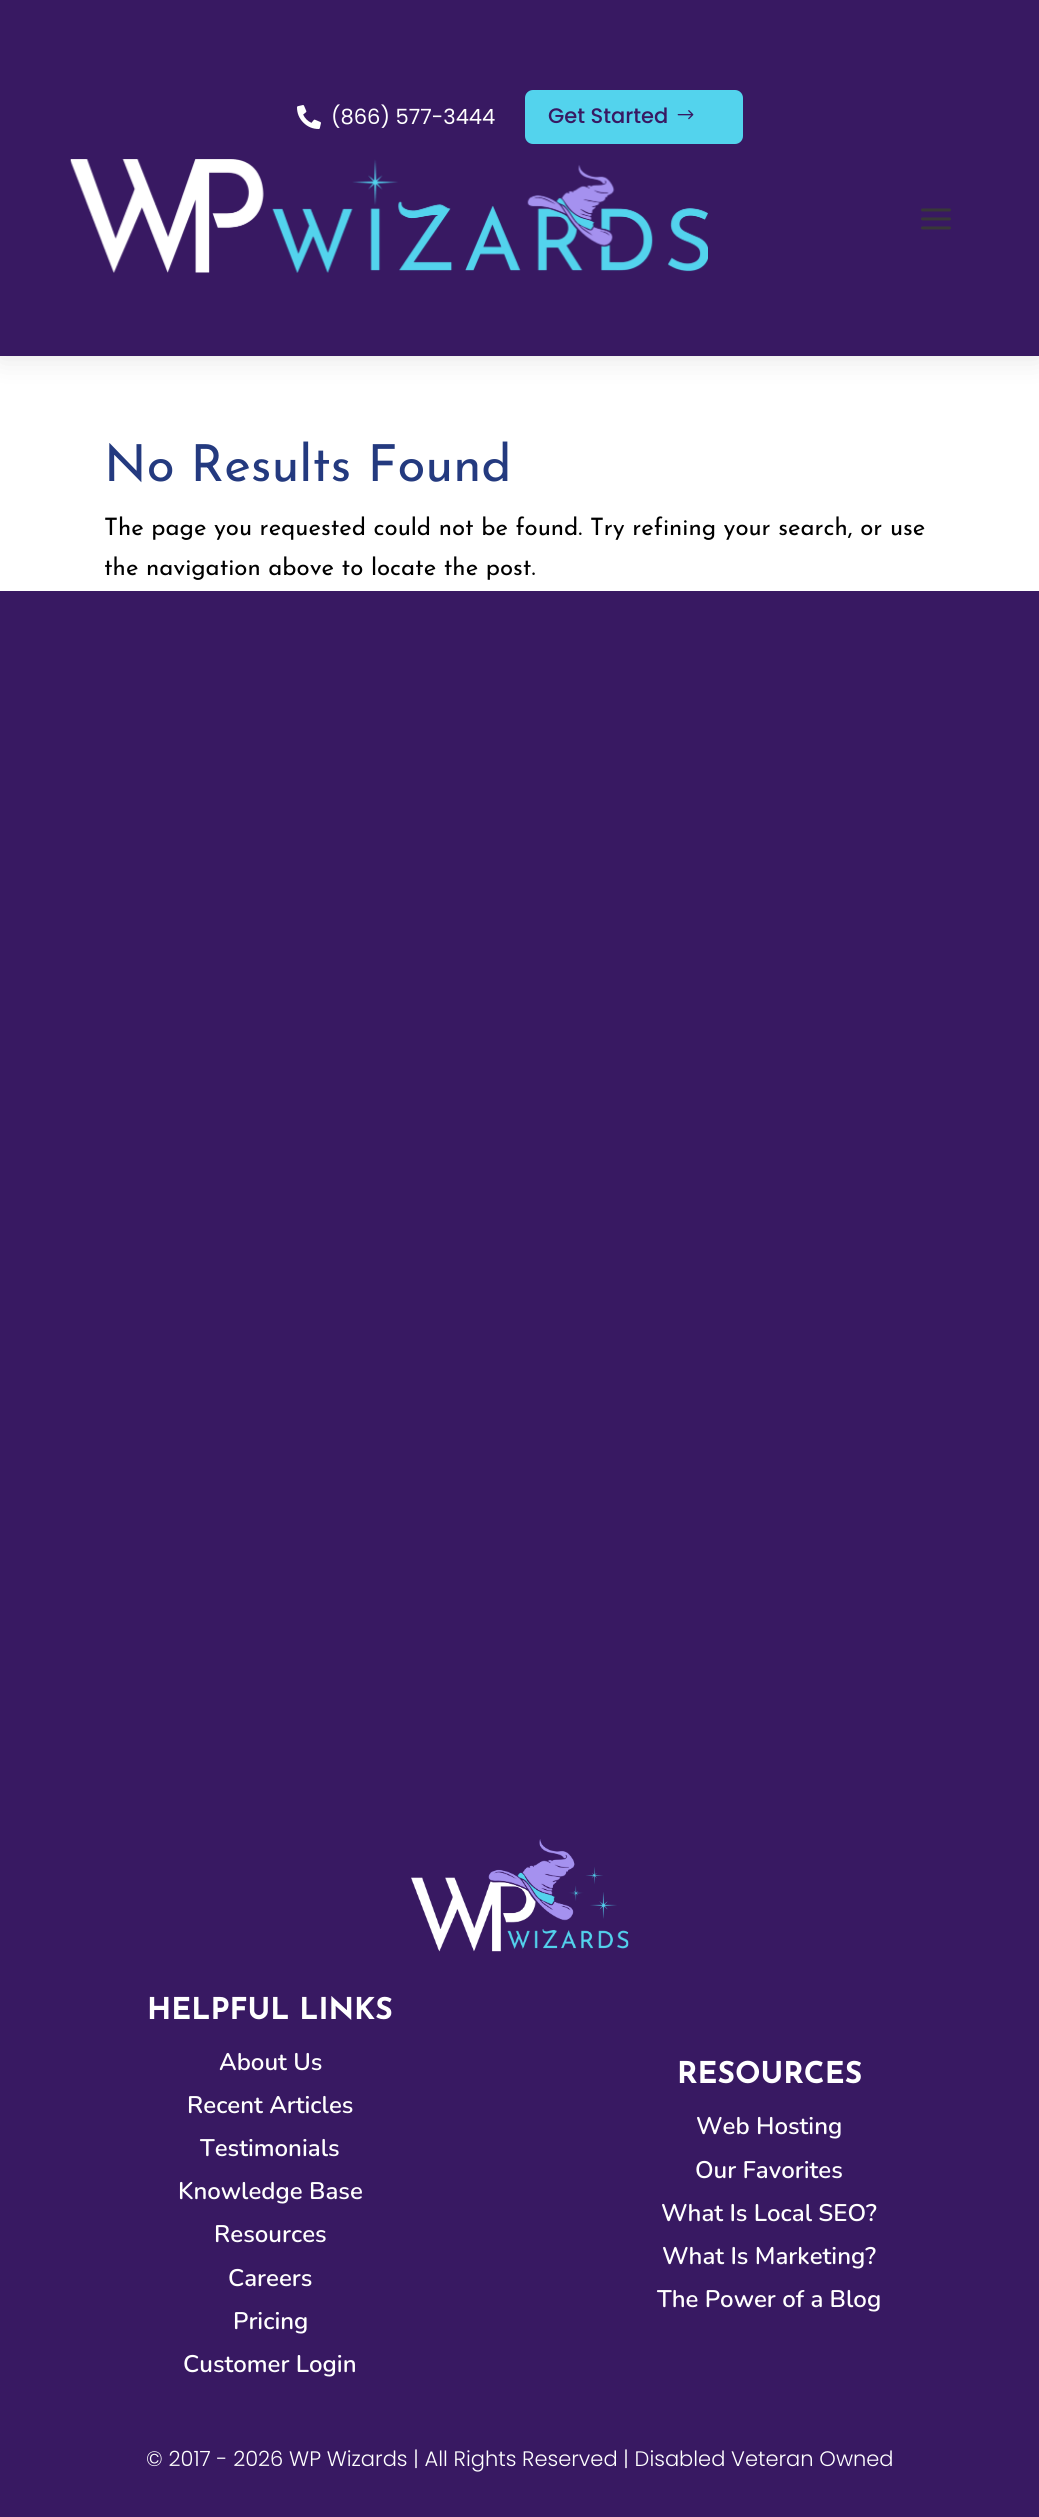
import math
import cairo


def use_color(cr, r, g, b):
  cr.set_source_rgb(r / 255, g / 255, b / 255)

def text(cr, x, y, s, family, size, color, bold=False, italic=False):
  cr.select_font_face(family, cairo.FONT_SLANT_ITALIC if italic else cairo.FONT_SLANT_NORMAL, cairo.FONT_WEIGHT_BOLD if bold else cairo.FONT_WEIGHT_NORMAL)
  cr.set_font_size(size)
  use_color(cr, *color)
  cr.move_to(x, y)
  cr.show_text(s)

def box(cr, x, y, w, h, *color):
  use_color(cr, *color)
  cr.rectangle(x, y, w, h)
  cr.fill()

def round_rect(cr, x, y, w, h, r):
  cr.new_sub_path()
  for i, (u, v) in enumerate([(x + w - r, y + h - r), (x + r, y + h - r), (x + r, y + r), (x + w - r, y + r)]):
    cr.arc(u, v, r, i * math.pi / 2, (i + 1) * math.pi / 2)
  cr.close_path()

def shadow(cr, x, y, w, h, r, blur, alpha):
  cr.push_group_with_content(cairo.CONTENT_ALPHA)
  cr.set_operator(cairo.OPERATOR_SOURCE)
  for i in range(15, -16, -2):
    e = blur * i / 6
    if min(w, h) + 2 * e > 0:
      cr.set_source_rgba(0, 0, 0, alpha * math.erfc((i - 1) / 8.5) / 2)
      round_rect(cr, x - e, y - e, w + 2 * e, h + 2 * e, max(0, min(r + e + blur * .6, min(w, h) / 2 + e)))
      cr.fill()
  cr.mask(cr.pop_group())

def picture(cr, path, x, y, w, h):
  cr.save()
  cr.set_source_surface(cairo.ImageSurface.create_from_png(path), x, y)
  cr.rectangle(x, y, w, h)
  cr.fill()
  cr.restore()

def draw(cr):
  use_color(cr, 56, 25, 98)
  cr.paint()
  box(cr, 0, 356, 1039, 235, 255, 255, 255)
  use_color(cr, 0, 0, 0)
  shadow(cr, 0, 3, 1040, 356, 0, 13.5, 0.1)
  box(cr, 0, 0, 1039, 356, 56, 25, 98)
  picture(cr, "img_01.png", 297, 105, 24, 24)
  use_color(cr, 83, 211, 237)
  round_rect(cr, 525, 90, 218, 54, 8)
  cr.fill()
  picture(cr, "img_02.png", 677, 110, 17, 10)
  picture(cr, "img_03.png", 70, 159, 638, 114)
  picture(cr, "img_04.png", 921, 208, 30, 22)
  picture(cr, "img_05.png", 411, 1839, 218, 113)
  text(cr, 331, 124, "(866) 577-3444", "Poppins", 21, (255, 255, 255))
  text(cr, 548, 123, "Get Started", "Poppins Medium", 21, (56, 25, 98))
  text(cr, 104, 481, "No Results Found", "Josefin Sans", 51, (36, 58, 127))
  text(cr, 104, 535, "The page you requested could not be found. Try refining your search, or use", "Josefin Sans", 24, (0, 0, 0))
  text(cr, 104, 575, "the navigation above to locate the post.", "Josefin Sans", 24, (0, 0, 0))
  text(cr, 147, 2019, "HELPFUL LINKS", "Josefin Sans", 30, (255, 255, 255), bold=True)
  text(cr, 219, 2070, "About Us", "Nunito SemiBold", 24, (255, 255, 255))
  text(cr, 187, 2113, "Recent Articles", "Nunito SemiBold", 24, (255, 255, 255))
  text(cr, 200, 2156, "Testimonials", "Nunito SemiBold", 24, (255, 255, 255))
  text(cr, 178, 2199, "Knowledge Base", "Nunito SemiBold", 24, (255, 255, 255))
  text(cr, 214, 2242, "Resources", "Nunito SemiBold", 24, (255, 255, 255))
  text(cr, 228, 2286, "Careers", "Nunito SemiBold", 24, (255, 255, 255))
  text(cr, 233, 2329, "Pricing", "Nunito SemiBold", 24, (255, 255, 255))
  text(cr, 183, 2372, "Customer Login", "Nunito SemiBold", 24, (255, 255, 255))
  text(cr, 677, 2083, "RESOURCES", "Josefin Sans", 30, (255, 255, 255), bold=True)
  text(cr, 696, 2134, "Web Hosting", "Nunito SemiBold", 24, (255, 255, 255))
  text(cr, 695, 2178, "Our Favorites", "Nunito SemiBold", 24, (255, 255, 255))
  text(cr, 661, 2221, "What Is Local SEO?", "Nunito SemiBold", 24, (255, 255, 255))
  text(cr, 662, 2264, "What Is Marketing?", "Nunito SemiBold", 24, (255, 255, 255))
  text(cr, 657, 2307, "The Power of a Blog", "Nunito SemiBold", 24, (255, 255, 255))
  text(cr, 146, 2466, "© 2017 - 2026 WP Wizards | All Rights Reserved | Disabled Veteran Owned", "Poppins Light", 21, (255, 255, 255))


surface = cairo.ImageSurface(cairo.FORMAT_RGB24, 1039, 2517)
cr = cairo.Context(surface)
options = cairo.FontOptions()
options.set_hint_metrics(cairo.HINT_METRICS_OFF)
options.set_hint_style(cairo.HINT_STYLE_NONE)
cr.set_font_options(options)
cr.set_miter_limit(4)
draw(cr)
surface.write_to_png("out.png")
